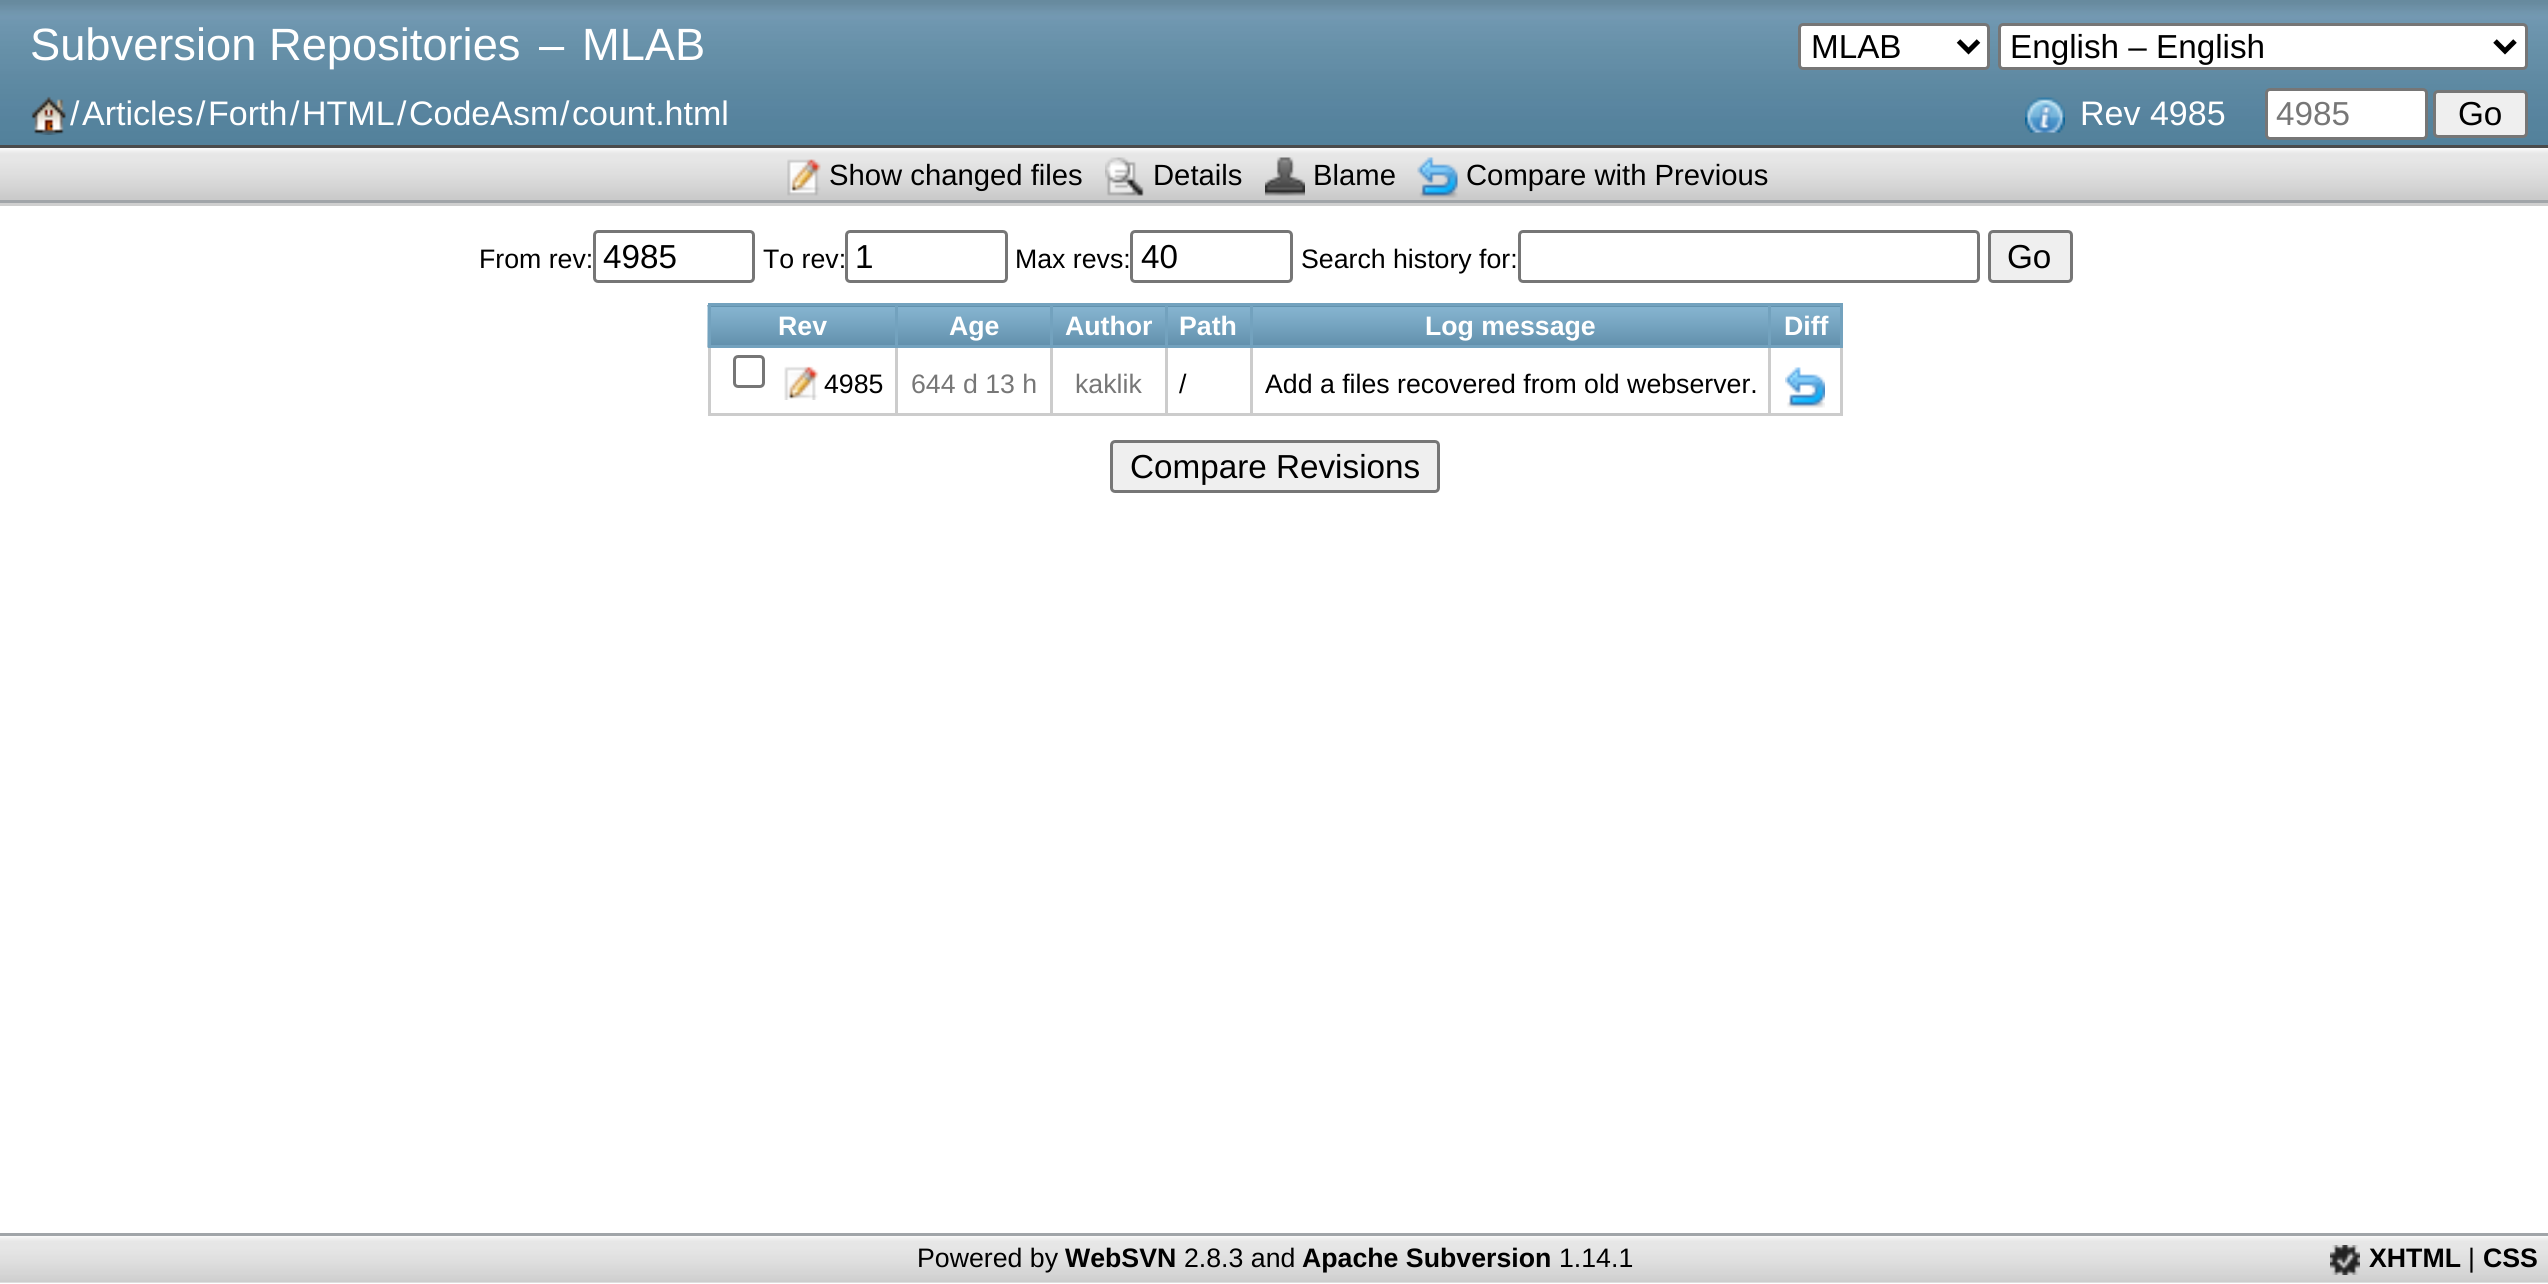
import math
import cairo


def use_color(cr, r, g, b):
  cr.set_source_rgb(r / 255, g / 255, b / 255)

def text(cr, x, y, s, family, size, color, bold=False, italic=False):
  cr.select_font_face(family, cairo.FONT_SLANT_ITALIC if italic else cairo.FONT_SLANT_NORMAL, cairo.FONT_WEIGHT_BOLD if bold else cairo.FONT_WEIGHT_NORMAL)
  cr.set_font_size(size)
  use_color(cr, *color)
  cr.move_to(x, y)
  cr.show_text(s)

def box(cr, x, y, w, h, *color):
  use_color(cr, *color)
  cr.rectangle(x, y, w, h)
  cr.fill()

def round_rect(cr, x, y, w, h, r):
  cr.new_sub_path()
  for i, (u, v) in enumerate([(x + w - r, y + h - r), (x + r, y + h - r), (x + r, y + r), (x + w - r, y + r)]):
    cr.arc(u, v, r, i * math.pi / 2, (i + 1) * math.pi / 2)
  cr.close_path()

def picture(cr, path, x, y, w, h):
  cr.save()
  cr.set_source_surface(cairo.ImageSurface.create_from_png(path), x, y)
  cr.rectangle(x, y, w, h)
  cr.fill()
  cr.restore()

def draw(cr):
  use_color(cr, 255, 255, 255)
  cr.paint()
  picture(cr, "img_01.png", 0, 0, 2548, 145)
  box(cr, 0, 145, 2548, 3, 75, 75, 75)
  use_color(cr, 255, 255, 255)
  round_rect(cr, 1799.5, 24.5, 189, 44, 3.5)
  cr.fill_preserve()
  use_color(cr, 118, 118, 118)
  cr.set_line_width(3)
  cr.stroke()
  cr.new_path()
  cr.move_to(1958.5, 41)
  cr.line_to(1968.5, 51)
  cr.line_to(1978.5, 41)
  use_color(cr, 0, 0, 0)
  cr.set_line_width(5)
  cr.stroke()
  use_color(cr, 255, 255, 255)
  round_rect(cr, 1999.5, 24.5, 527, 44, 3.5)
  cr.fill_preserve()
  use_color(cr, 118, 118, 118)
  cr.set_line_width(3)
  cr.stroke()
  cr.new_path()
  cr.move_to(2495, 41)
  cr.line_to(2505, 51)
  cr.line_to(2515, 41)
  use_color(cr, 0, 0, 0)
  cr.set_line_width(5)
  cr.stroke()
  picture(cr, "img_02.png", 31, 96, 35, 39)
  picture(cr, "img_03.png", 2025, 97, 40, 36)
  use_color(cr, 255, 255, 255)
  round_rect(cr, 2266.5, 89.5, 160, 49, 3.5)
  cr.fill_preserve()
  use_color(cr, 118, 118, 118)
  cr.set_line_width(3)
  cr.stroke()
  use_color(cr, 239, 239, 239)
  round_rect(cr, 2434.5, 91.5, 92, 45, 3.5)
  cr.fill_preserve()
  use_color(cr, 118, 118, 118)
  cr.stroke()
  picture(cr, "img_04.png", 0, 148, 2548, 52)
  box(cr, 0, 200, 2548, 3, 161, 165, 169)
  picture(cr, "img_05.png", 787, 159, 34, 37)
  picture(cr, "img_06.png", 1105, 157, 39, 39)
  picture(cr, "img_07.png", 1265, 157, 40, 39)
  picture(cr, "img_08.png", 1417, 157, 41, 41)
  box(cr, 0, 203, 2548, 3, 207, 207, 207)
  round_rect(cr, 594.5, 231.5, 159, 50, 3.5)
  use_color(cr, 118, 118, 118)
  cr.stroke()
  round_rect(cr, 846.5, 231.5, 160, 50, 3.5)
  cr.stroke()
  round_rect(cr, 1131.5, 231.5, 160, 50, 3.5)
  cr.stroke()
  round_rect(cr, 1519.5, 231.5, 459, 50, 3.5)
  cr.stroke()
  use_color(cr, 239, 239, 239)
  round_rect(cr, 1989.5, 231.5, 82, 50, 3.5)
  cr.fill_preserve()
  use_color(cr, 118, 118, 118)
  cr.stroke()
  box(cr, 1840, 348, 3, 67, 204, 204, 204)
  box(cr, 708, 413, 1135, 3, 204, 204, 204)
  box(cr, 708, 348, 3, 67, 204, 204, 204)
  picture(cr, "img_09.png", 707, 305, 188, 43)
  box(cr, 1768, 303, 75, 3, 115, 162, 190)
  box(cr, 1840, 303, 3, 45, 115, 162, 190)
  box(cr, 1768, 345, 3, 70, 204, 204, 204)
  box(cr, 1768, 345, 75, 3, 115, 162, 190)
  box(cr, 1768, 303, 3, 45, 115, 162, 190)
  box(cr, 1250, 303, 520, 3, 115, 162, 190)
  box(cr, 1250, 345, 3, 70, 204, 204, 204)
  box(cr, 1250, 345, 520, 3, 115, 162, 190)
  box(cr, 1250, 303, 3, 45, 115, 162, 190)
  box(cr, 1165, 303, 88, 3, 115, 162, 190)
  box(cr, 1165, 345, 3, 70, 204, 204, 204)
  box(cr, 1165, 345, 88, 3, 115, 162, 190)
  box(cr, 1165, 303, 3, 45, 115, 162, 190)
  box(cr, 1050, 303, 118, 3, 115, 162, 190)
  box(cr, 1050, 345, 3, 70, 204, 204, 204)
  box(cr, 1050, 345, 118, 3, 115, 162, 190)
  box(cr, 1050, 303, 3, 45, 115, 162, 190)
  box(cr, 895, 303, 158, 3, 115, 162, 190)
  box(cr, 895, 345, 3, 70, 204, 204, 204)
  box(cr, 895, 345, 158, 3, 115, 162, 190)
  box(cr, 895, 303, 3, 45, 115, 162, 190)
  box(cr, 708, 303, 190, 3, 115, 162, 190)
  box(cr, 708, 345, 190, 3, 115, 162, 190)
  box(cr, 708, 303, 3, 45, 115, 162, 190)
  picture(cr, "img_10.png", 898, 306, 152, 39)
  picture(cr, "img_11.png", 1053, 306, 112, 39)
  picture(cr, "img_12.png", 1168, 306, 82, 39)
  picture(cr, "img_13.png", 1253, 306, 515, 39)
  picture(cr, "img_14.png", 1771, 306, 69, 39)
  round_rect(cr, 734.5, 356.5, 29, 30, 3.5)
  use_color(cr, 118, 118, 118)
  cr.stroke()
  picture(cr, "img_15.png", 784, 366, 35, 34)
  picture(cr, "img_16.png", 1785, 367, 40, 41)
  use_color(cr, 239, 239, 239)
  round_rect(cr, 1111.5, 441.5, 327, 50, 3.5)
  cr.fill_preserve()
  use_color(cr, 118, 118, 118)
  cr.stroke()
  box(cr, 0, 1282, 2548, 1, 240, 240, 240)
  picture(cr, "img_17.png", 0, 1236, 2548, 47)
  box(cr, 0, 1233, 2548, 3, 161, 165, 169)
  picture(cr, "img_18.png", 2330, 1245, 30, 30)
  text(cr, 30, 60, "Subversion Repositories", "Liberation Sans", 45.25, (255, 255, 255))
  text(cr, 539, 60, "–", "Liberation Sans", 45.25, (255, 255, 255))
  text(cr, 582, 60, "MLAB", "Liberation Sans", 45.25, (255, 255, 255))
  text(cr, 1811, 58, "MLAB", "Liberation Sans", 33.25, (0, 0, 0))
  text(cr, 2010, 58, "English – English", "Liberation Sans", 33.25, (0, 0, 0))
  text(cr, 70, 125, "/", "Liberation Sans", 34, (255, 255, 255))
  text(cr, 82, 125, "Articles", "Liberation Sans", 34, (255, 255, 255))
  text(cr, 196, 125, "/", "Liberation Sans", 34, (255, 255, 255))
  text(cr, 208, 125, "Forth", "Liberation Sans", 34, (255, 255, 255))
  text(cr, 290, 125, "/", "Liberation Sans", 34, (255, 255, 255))
  text(cr, 302, 125, "HTML", "Liberation Sans", 34, (255, 255, 255))
  text(cr, 397, 125, "/", "Liberation Sans", 34, (255, 255, 255))
  text(cr, 409, 125, "CodeAsm", "Liberation Sans", 34, (255, 255, 255))
  text(cr, 560, 125, "/", "Liberation Sans", 34, (255, 255, 255))
  text(cr, 572, 125, "count.html", "Liberation Sans", 34, (255, 255, 255))
  text(cr, 2080, 125, "Rev 4985", "Liberation Sans", 34, (255, 255, 255))
  text(cr, 2276, 125, "4985", "Liberation Sans", 33.25, (119, 119, 119))
  text(cr, 2458, 125, "Go", "Liberation Sans", 33.25, (0, 0, 0))
  text(cr, 829, 185, "Show changed files", "Liberation Sans", 29.25, (0, 0, 0))
  text(cr, 1153, 185, "Details", "Liberation Sans", 29.25, (0, 0, 0))
  text(cr, 1313, 185, "Blame", "Liberation Sans", 29.25, (0, 0, 0))
  text(cr, 1466, 185, "Compare with Previous", "Liberation Sans", 29.25, (0, 0, 0))
  text(cr, 479, 268, "From rev:", "Liberation Sans", 26.7, (0, 0, 0))
  text(cr, 603, 268, "4985", "Liberation Sans", 33.25, (0, 0, 0))
  text(cr, 763, 268, "To rev:", "Liberation Sans", 26.7, (0, 0, 0))
  text(cr, 855, 268, "1", "Liberation Sans", 33.25, (0, 0, 0))
  text(cr, 1015, 268, "Max revs:", "Liberation Sans", 26.7, (0, 0, 0))
  text(cr, 1141, 268, "40", "Liberation Sans", 33.25, (0, 0, 0))
  text(cr, 1301, 268, "Search history for:", "Liberation Sans", 26.7, (0, 0, 0))
  text(cr, 2007, 268, "Go", "Liberation Sans", 33.25, (0, 0, 0))
  text(cr, 778, 335, "Rev", "Liberation Sans", 26.7, (255, 255, 255), bold=True)
  text(cr, 949, 335, "Age", "Liberation Sans", 26.7, (255, 255, 255), bold=True)
  text(cr, 1065, 335, "Author", "Liberation Sans", 26.7, (255, 255, 255), bold=True)
  text(cr, 1179, 335, "Path", "Liberation Sans", 26.7, (255, 255, 255), bold=True)
  text(cr, 1425, 335, "Log message", "Liberation Sans", 26.7, (255, 255, 255), bold=True)
  text(cr, 1784, 335, "Diff", "Liberation Sans", 26.7, (255, 255, 255), bold=True)
  text(cr, 824, 393, "4985", "Liberation Sans", 26.7, (0, 0, 0))
  text(cr, 911, 393, "644 d 13 h", "Liberation Sans", 26.7, (119, 119, 119))
  text(cr, 1075, 393, "kaklik", "Liberation Sans", 26.7, (119, 119, 119))
  text(cr, 1179, 393, "/", "Liberation Sans", 26.7, (0, 0, 0))
  text(cr, 1265, 393, "Add a files recovered from old webserver.", "Liberation Sans", 26.7, (0, 0, 0))
  text(cr, 1130, 478, "Compare Revisions", "Liberation Sans", 33.25, (0, 0, 0))
  text(cr, 917, 1267, "Powered by", "Liberation Sans", 26.7, (0, 0, 0))
  text(cr, 1065, 1267, "WebSVN", "Liberation Sans", 26.7, (0, 0, 0), bold=True)
  text(cr, 1184, 1267, "2.8.3 and", "Liberation Sans", 26.7, (0, 0, 0))
  text(cr, 1302, 1267, "Apache Subversion", "Liberation Sans", 26.7, (0, 0, 0), bold=True)
  text(cr, 1559, 1267, "1.14.1", "Liberation Sans", 26.7, (0, 0, 0))
  text(cr, 2369, 1267, "XHTML", "Liberation Sans", 26.7, (0, 0, 0), bold=True)
  text(cr, 2468, 1267, "|", "Liberation Sans", 26.7, (0, 0, 0))
  text(cr, 2483, 1267, "CSS", "Liberation Sans", 26.7, (0, 0, 0), bold=True)


surface = cairo.ImageSurface(cairo.FORMAT_RGB24, 2548, 1284)
cr = cairo.Context(surface)
options = cairo.FontOptions()
options.set_hint_metrics(cairo.HINT_METRICS_OFF)
options.set_hint_style(cairo.HINT_STYLE_NONE)
cr.set_font_options(options)
cr.set_miter_limit(4)
draw(cr)
surface.write_to_png("out.png")
